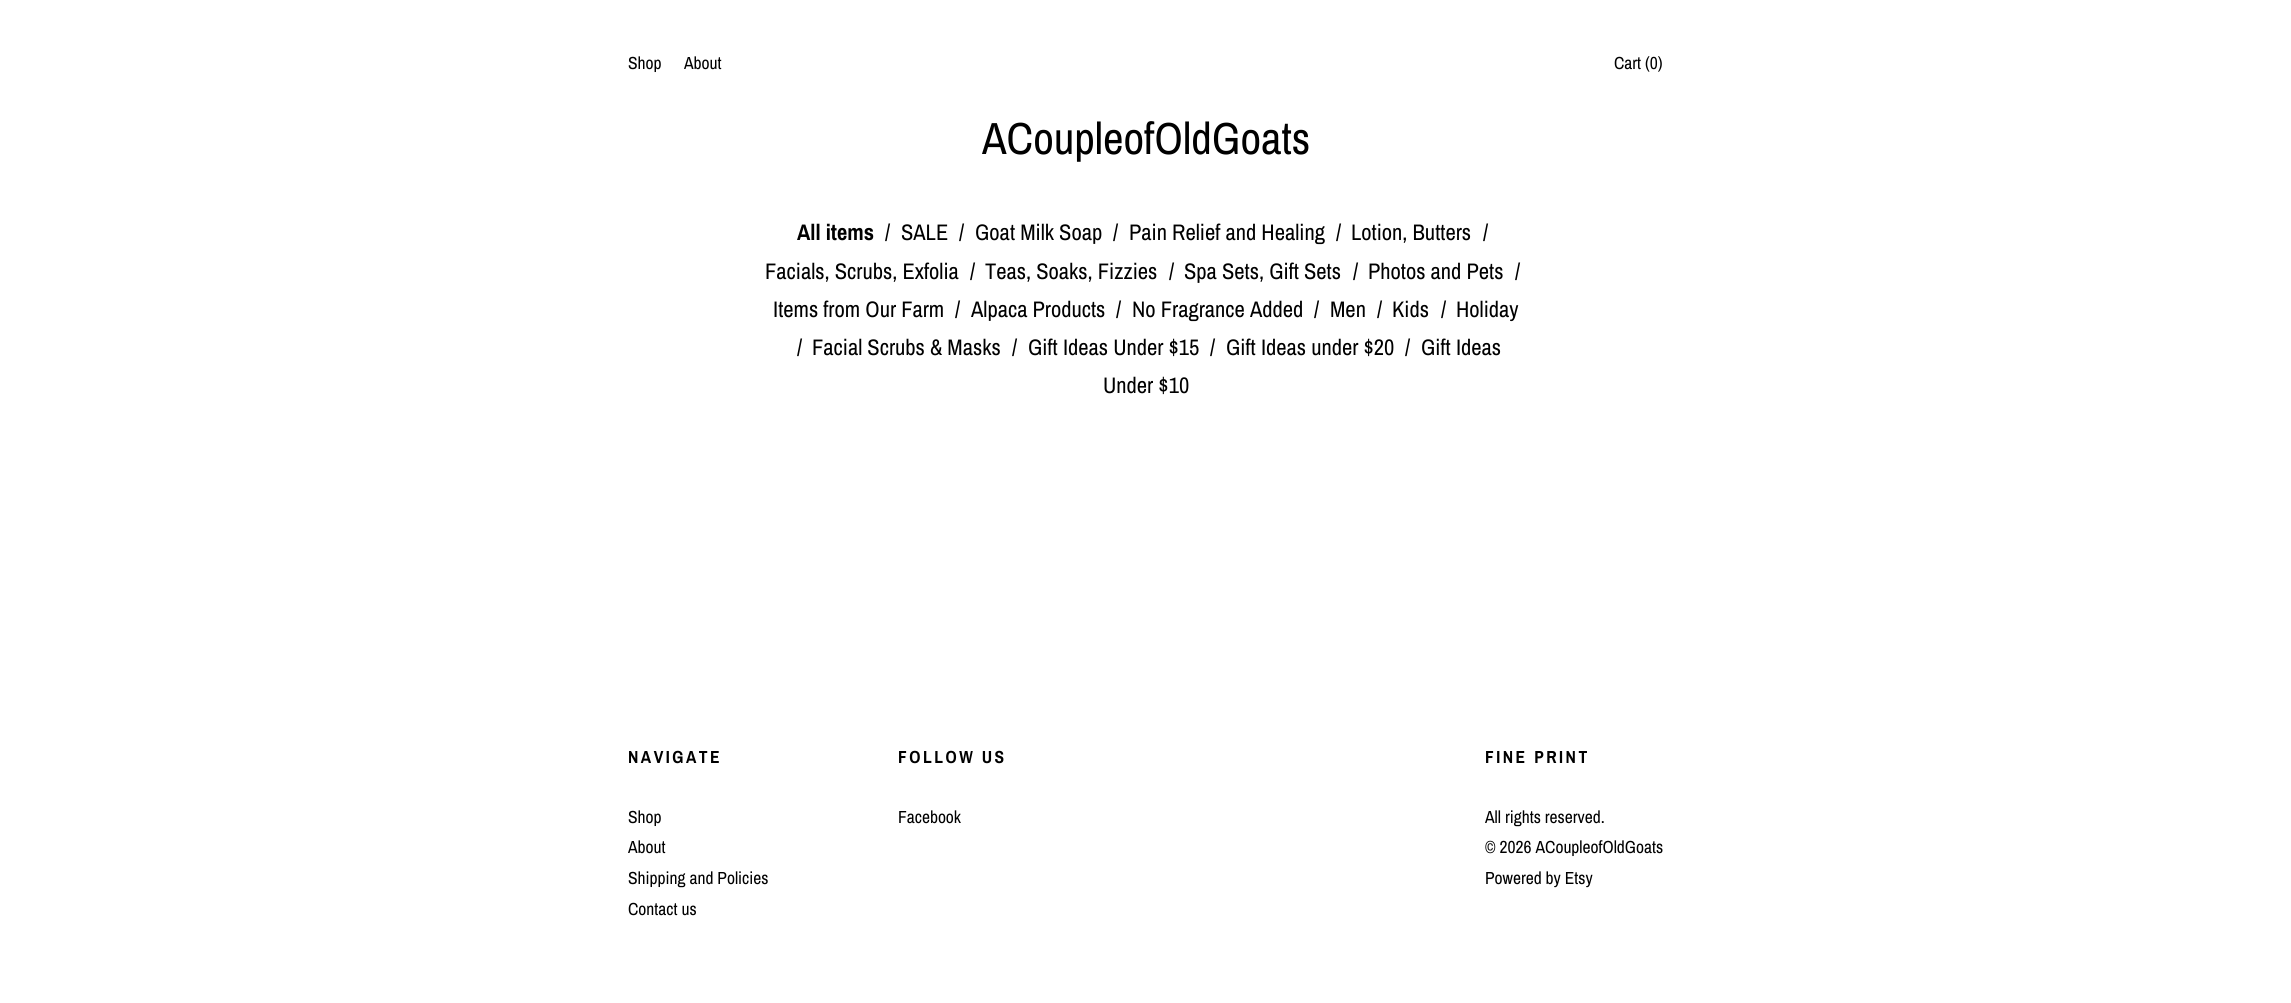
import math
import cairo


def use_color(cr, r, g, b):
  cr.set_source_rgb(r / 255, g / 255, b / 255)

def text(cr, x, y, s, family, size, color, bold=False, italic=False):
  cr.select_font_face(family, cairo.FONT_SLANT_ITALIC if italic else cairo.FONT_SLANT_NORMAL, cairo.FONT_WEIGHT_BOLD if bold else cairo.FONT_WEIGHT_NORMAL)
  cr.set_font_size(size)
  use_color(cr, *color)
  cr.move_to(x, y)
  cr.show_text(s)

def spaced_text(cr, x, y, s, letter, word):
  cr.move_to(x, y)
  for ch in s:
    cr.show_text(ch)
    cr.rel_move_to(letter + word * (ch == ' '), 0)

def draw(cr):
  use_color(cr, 255, 255, 255)
  cr.paint()
  text(cr, 628, 69, "Shop", "Archivo Narrow", 17.5, (0, 0, 0))
  text(cr, 684, 69, "About", "Archivo Narrow", 17.5, (0, 0, 0))
  text(cr, 1614, 69, "Cart (0)", "Archivo Narrow", 17.5, (0, 0, 0))
  text(cr, 982, 154, "ACoupleofOldGoats", "Archivo Narrow", 45, (0, 0, 0))
  text(cr, 797, 240, "All items", "Archivo Narrow", 22.5, (0, 0, 0), bold=True)
  text(cr, 885, 240, "/", "Archivo Narrow", 22.5, (0, 0, 0))
  text(cr, 901, 240, "SALE", "Archivo Narrow", 22.5, (0, 0, 0))
  text(cr, 959, 240, "/", "Archivo Narrow", 22.5, (0, 0, 0))
  text(cr, 975, 240, "Goat Milk Soap", "Archivo Narrow", 22.5, (0, 0, 0))
  text(cr, 1113, 240, "/", "Archivo Narrow", 22.5, (0, 0, 0))
  text(cr, 1129, 240, "Pain Relief and Healing", "Archivo Narrow", 22.5, (0, 0, 0))
  text(cr, 1336, 240, "/", "Archivo Narrow", 22.5, (0, 0, 0))
  text(cr, 1351, 240, "Lotion, Butters", "Archivo Narrow", 22.5, (0, 0, 0))
  text(cr, 1483, 240, "/", "Archivo Narrow", 22.5, (0, 0, 0))
  text(cr, 765, 279, "Facials, Scrubs, Exfolia", "Archivo Narrow", 22.5, (0, 0, 0))
  text(cr, 970, 279, "/", "Archivo Narrow", 22.5, (0, 0, 0))
  text(cr, 985, 279, "Teas, Soaks, Fizzies", "Archivo Narrow", 22.5, (0, 0, 0))
  text(cr, 1169, 279, "/", "Archivo Narrow", 22.5, (0, 0, 0))
  text(cr, 1184, 279, "Spa Sets, Gift Sets", "Archivo Narrow", 22.5, (0, 0, 0))
  text(cr, 1353, 279, "/", "Archivo Narrow", 22.5, (0, 0, 0))
  text(cr, 1368, 279, "Photos and Pets", "Archivo Narrow", 22.5, (0, 0, 0))
  text(cr, 1515, 279, "/", "Archivo Narrow", 22.5, (0, 0, 0))
  text(cr, 773, 317, "Items from Our Farm", "Archivo Narrow", 22.5, (0, 0, 0))
  text(cr, 955, 317, "/", "Archivo Narrow", 22.5, (0, 0, 0))
  text(cr, 971, 317, "Alpaca Products", "Archivo Narrow", 22.5, (0, 0, 0))
  text(cr, 1116, 317, "/", "Archivo Narrow", 22.5, (0, 0, 0))
  text(cr, 1132, 317, "No Fragrance Added", "Archivo Narrow", 22.5, (0, 0, 0))
  text(cr, 1314, 317, "/", "Archivo Narrow", 22.5, (0, 0, 0))
  text(cr, 1330, 317, "Men", "Archivo Narrow", 22.5, (0, 0, 0))
  text(cr, 1377, 317, "/", "Archivo Narrow", 22.5, (0, 0, 0))
  text(cr, 1392, 317, "Kids", "Archivo Narrow", 22.5, (0, 0, 0))
  text(cr, 1441, 317, "/", "Archivo Narrow", 22.5, (0, 0, 0))
  text(cr, 1456, 317, "Holiday", "Archivo Narrow", 22.5, (0, 0, 0))
  text(cr, 797, 355, "/", "Archivo Narrow", 22.5, (0, 0, 0))
  text(cr, 812, 355, "Facial Scrubs & Masks", "Archivo Narrow", 22.5, (0, 0, 0))
  text(cr, 1012, 355, "/", "Archivo Narrow", 22.5, (0, 0, 0))
  text(cr, 1028, 355, "Gift Ideas Under $15", "Archivo Narrow", 22.5, (0, 0, 0))
  text(cr, 1210, 355, "/", "Archivo Narrow", 22.5, (0, 0, 0))
  text(cr, 1226, 355, "Gift Ideas under $20", "Archivo Narrow", 22.5, (0, 0, 0))
  text(cr, 1405, 355, "/", "Archivo Narrow", 22.5, (0, 0, 0))
  text(cr, 1421, 355, "Gift Ideas", "Archivo Narrow", 22.5, (0, 0, 0))
  text(cr, 1103, 393, "Under $10", "Archivo Narrow", 22.5, (0, 0, 0))
  cr.select_font_face("Archivo Narrow", cairo.FONT_SLANT_NORMAL, cairo.FONT_WEIGHT_BOLD)
  cr.set_font_size(17.5)
  spaced_text(cr, 628, 763, "NAVIGATE", 2.5, 0)
  text(cr, 628, 823, "Shop", "Archivo Narrow", 17.5, (0, 0, 0))
  text(cr, 628, 853, "About", "Archivo Narrow", 17.5, (0, 0, 0))
  text(cr, 628, 884, "Shipping and Policies", "Archivo Narrow", 17.5, (0, 0, 0))
  text(cr, 628, 915, "Contact us", "Archivo Narrow", 17.5, (0, 0, 0))
  cr.select_font_face("Archivo Narrow", cairo.FONT_SLANT_NORMAL, cairo.FONT_WEIGHT_BOLD)
  spaced_text(cr, 898, 763, "FOLLOW US", 2.5, 0)
  text(cr, 898, 823, "Facebook", "Archivo Narrow", 17.5, (0, 0, 0))
  cr.select_font_face("Archivo Narrow", cairo.FONT_SLANT_NORMAL, cairo.FONT_WEIGHT_BOLD)
  spaced_text(cr, 1485, 763, "FINE PRINT", 2.5, 0)
  text(cr, 1485, 823, "All rights reserved.", "Archivo Narrow", 17.5, (0, 0, 0))
  text(cr, 1485, 853, "© 2026 ACoupleofOldGoats", "Archivo Narrow", 17.5, (0, 0, 0))
  text(cr, 1485, 884, "Powered by Etsy", "Archivo Narrow", 17.5, (0, 0, 0))


surface = cairo.ImageSurface(cairo.FORMAT_RGB24, 2291, 1003)
cr = cairo.Context(surface)
options = cairo.FontOptions()
options.set_hint_metrics(cairo.HINT_METRICS_OFF)
options.set_hint_style(cairo.HINT_STYLE_NONE)
cr.set_font_options(options)
cr.set_miter_limit(4)
draw(cr)
surface.write_to_png("out.png")
